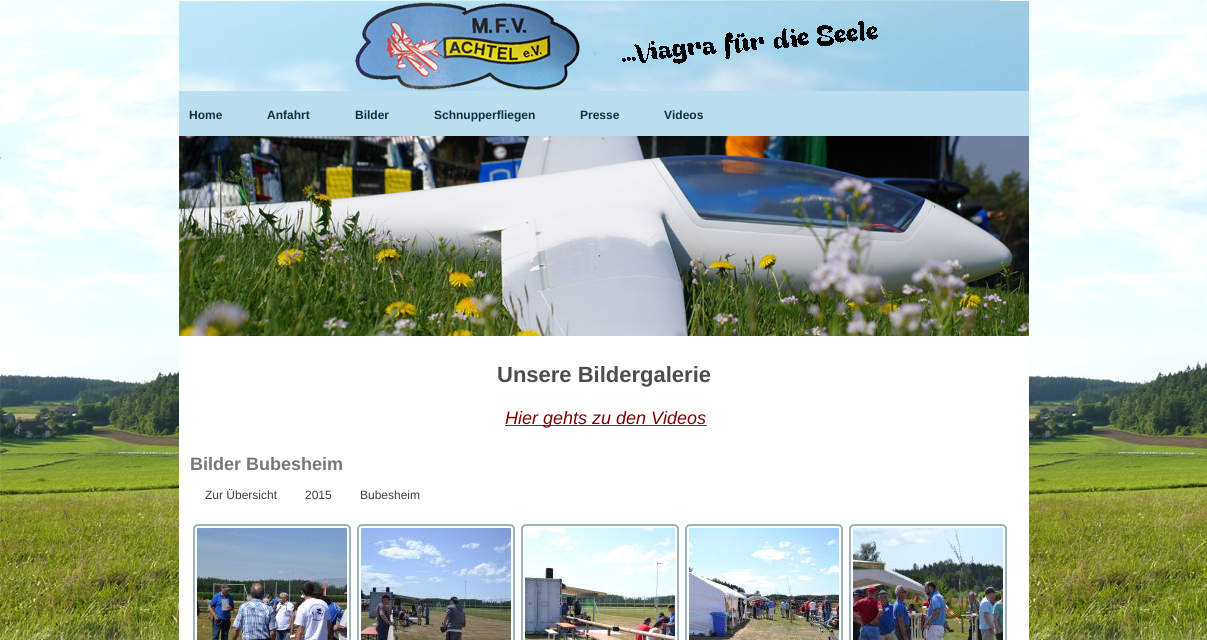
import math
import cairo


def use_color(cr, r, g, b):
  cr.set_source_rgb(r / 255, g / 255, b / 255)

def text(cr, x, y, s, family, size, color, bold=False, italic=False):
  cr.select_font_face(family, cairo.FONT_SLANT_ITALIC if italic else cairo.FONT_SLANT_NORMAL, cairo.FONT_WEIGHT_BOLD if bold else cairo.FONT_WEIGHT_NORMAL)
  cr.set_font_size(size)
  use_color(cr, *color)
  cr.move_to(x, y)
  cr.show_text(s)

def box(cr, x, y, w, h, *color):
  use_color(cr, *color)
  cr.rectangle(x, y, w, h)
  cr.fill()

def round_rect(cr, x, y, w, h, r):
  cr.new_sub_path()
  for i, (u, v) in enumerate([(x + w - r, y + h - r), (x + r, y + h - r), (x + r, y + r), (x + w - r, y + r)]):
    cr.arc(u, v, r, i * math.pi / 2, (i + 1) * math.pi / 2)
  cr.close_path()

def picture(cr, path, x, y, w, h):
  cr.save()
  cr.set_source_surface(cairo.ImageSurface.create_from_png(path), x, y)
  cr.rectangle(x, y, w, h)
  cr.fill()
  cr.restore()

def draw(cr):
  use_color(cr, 255, 255, 255)
  cr.paint()
  picture(cr, "img_01.png", 0, 0, 1207, 640)
  picture(cr, "img_02.png", 179, 1, 850, 90)
  box(cr, 179, 91, 850, 45, 187, 223, 239)
  box(cr, 179, 326, 850, 314, 255, 255, 255)
  picture(cr, "img_03.png", 179, 136, 850, 200)
  picture(cr, "img_04.png", 179, 136, 850, 200)
  box(cr, 505, 425, 202, 1, 63, 62, 62)
  round_rect(cr, 194, 525, 156, 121, 4)
  use_color(cr, 157, 178, 185)
  cr.stroke()
  picture(cr, "img_05.png", 197, 528, 150, 112)
  round_rect(cr, 358, 525, 156, 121, 4)
  cr.stroke()
  picture(cr, "img_06.png", 361, 528, 150, 112)
  round_rect(cr, 522, 525, 156, 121, 4)
  cr.stroke()
  picture(cr, "img_07.png", 525, 528, 150, 112)
  round_rect(cr, 686, 525, 156, 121, 4)
  cr.stroke()
  picture(cr, "img_08.png", 689, 528, 150, 112)
  round_rect(cr, 850, 525, 156, 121, 4)
  cr.stroke()
  picture(cr, "img_09.png", 853, 528, 150, 112)
  text(cr, 189, 119, "Home", "Liberation Sans", 12, (9, 50, 68), bold=True)
  text(cr, 267, 119, "Anfahrt", "Liberation Sans", 12, (9, 50, 68), bold=True)
  text(cr, 355, 119, "Bilder", "Liberation Sans", 12, (9, 50, 68), bold=True)
  text(cr, 434, 119, "Schnupperfliegen", "Liberation Sans", 12, (9, 50, 68), bold=True)
  text(cr, 580, 119, "Presse", "Liberation Sans", 12, (9, 50, 68), bold=True)
  text(cr, 664, 119, "Videos", "Liberation Sans", 12, (9, 50, 68), bold=True)
  text(cr, 497, 382, "Unsere Bildergalerie", "Liberation Sans", 22, (76, 77, 78), bold=True)
  text(cr, 505, 424, "Hier gehts zu den Videos", "Liberation Sans", 18, (128, 0, 0), italic=True)
  text(cr, 190, 470, "Bilder Bubesheim", "Liberation Sans", 18, (119, 119, 119), bold=True)
  text(cr, 205, 499, "Zur Übersicht", "Liberation Sans", 12, (63, 62, 62))
  text(cr, 305, 499, "2015", "Liberation Sans", 12, (63, 62, 62))
  text(cr, 360, 499, "Bubesheim", "Liberation Sans", 12, (63, 62, 62))


surface = cairo.ImageSurface(cairo.FORMAT_RGB24, 1207, 640)
cr = cairo.Context(surface)
options = cairo.FontOptions()
options.set_hint_metrics(cairo.HINT_METRICS_OFF)
options.set_hint_style(cairo.HINT_STYLE_NONE)
cr.set_font_options(options)
cr.set_miter_limit(4)
draw(cr)
surface.write_to_png("out.png")
